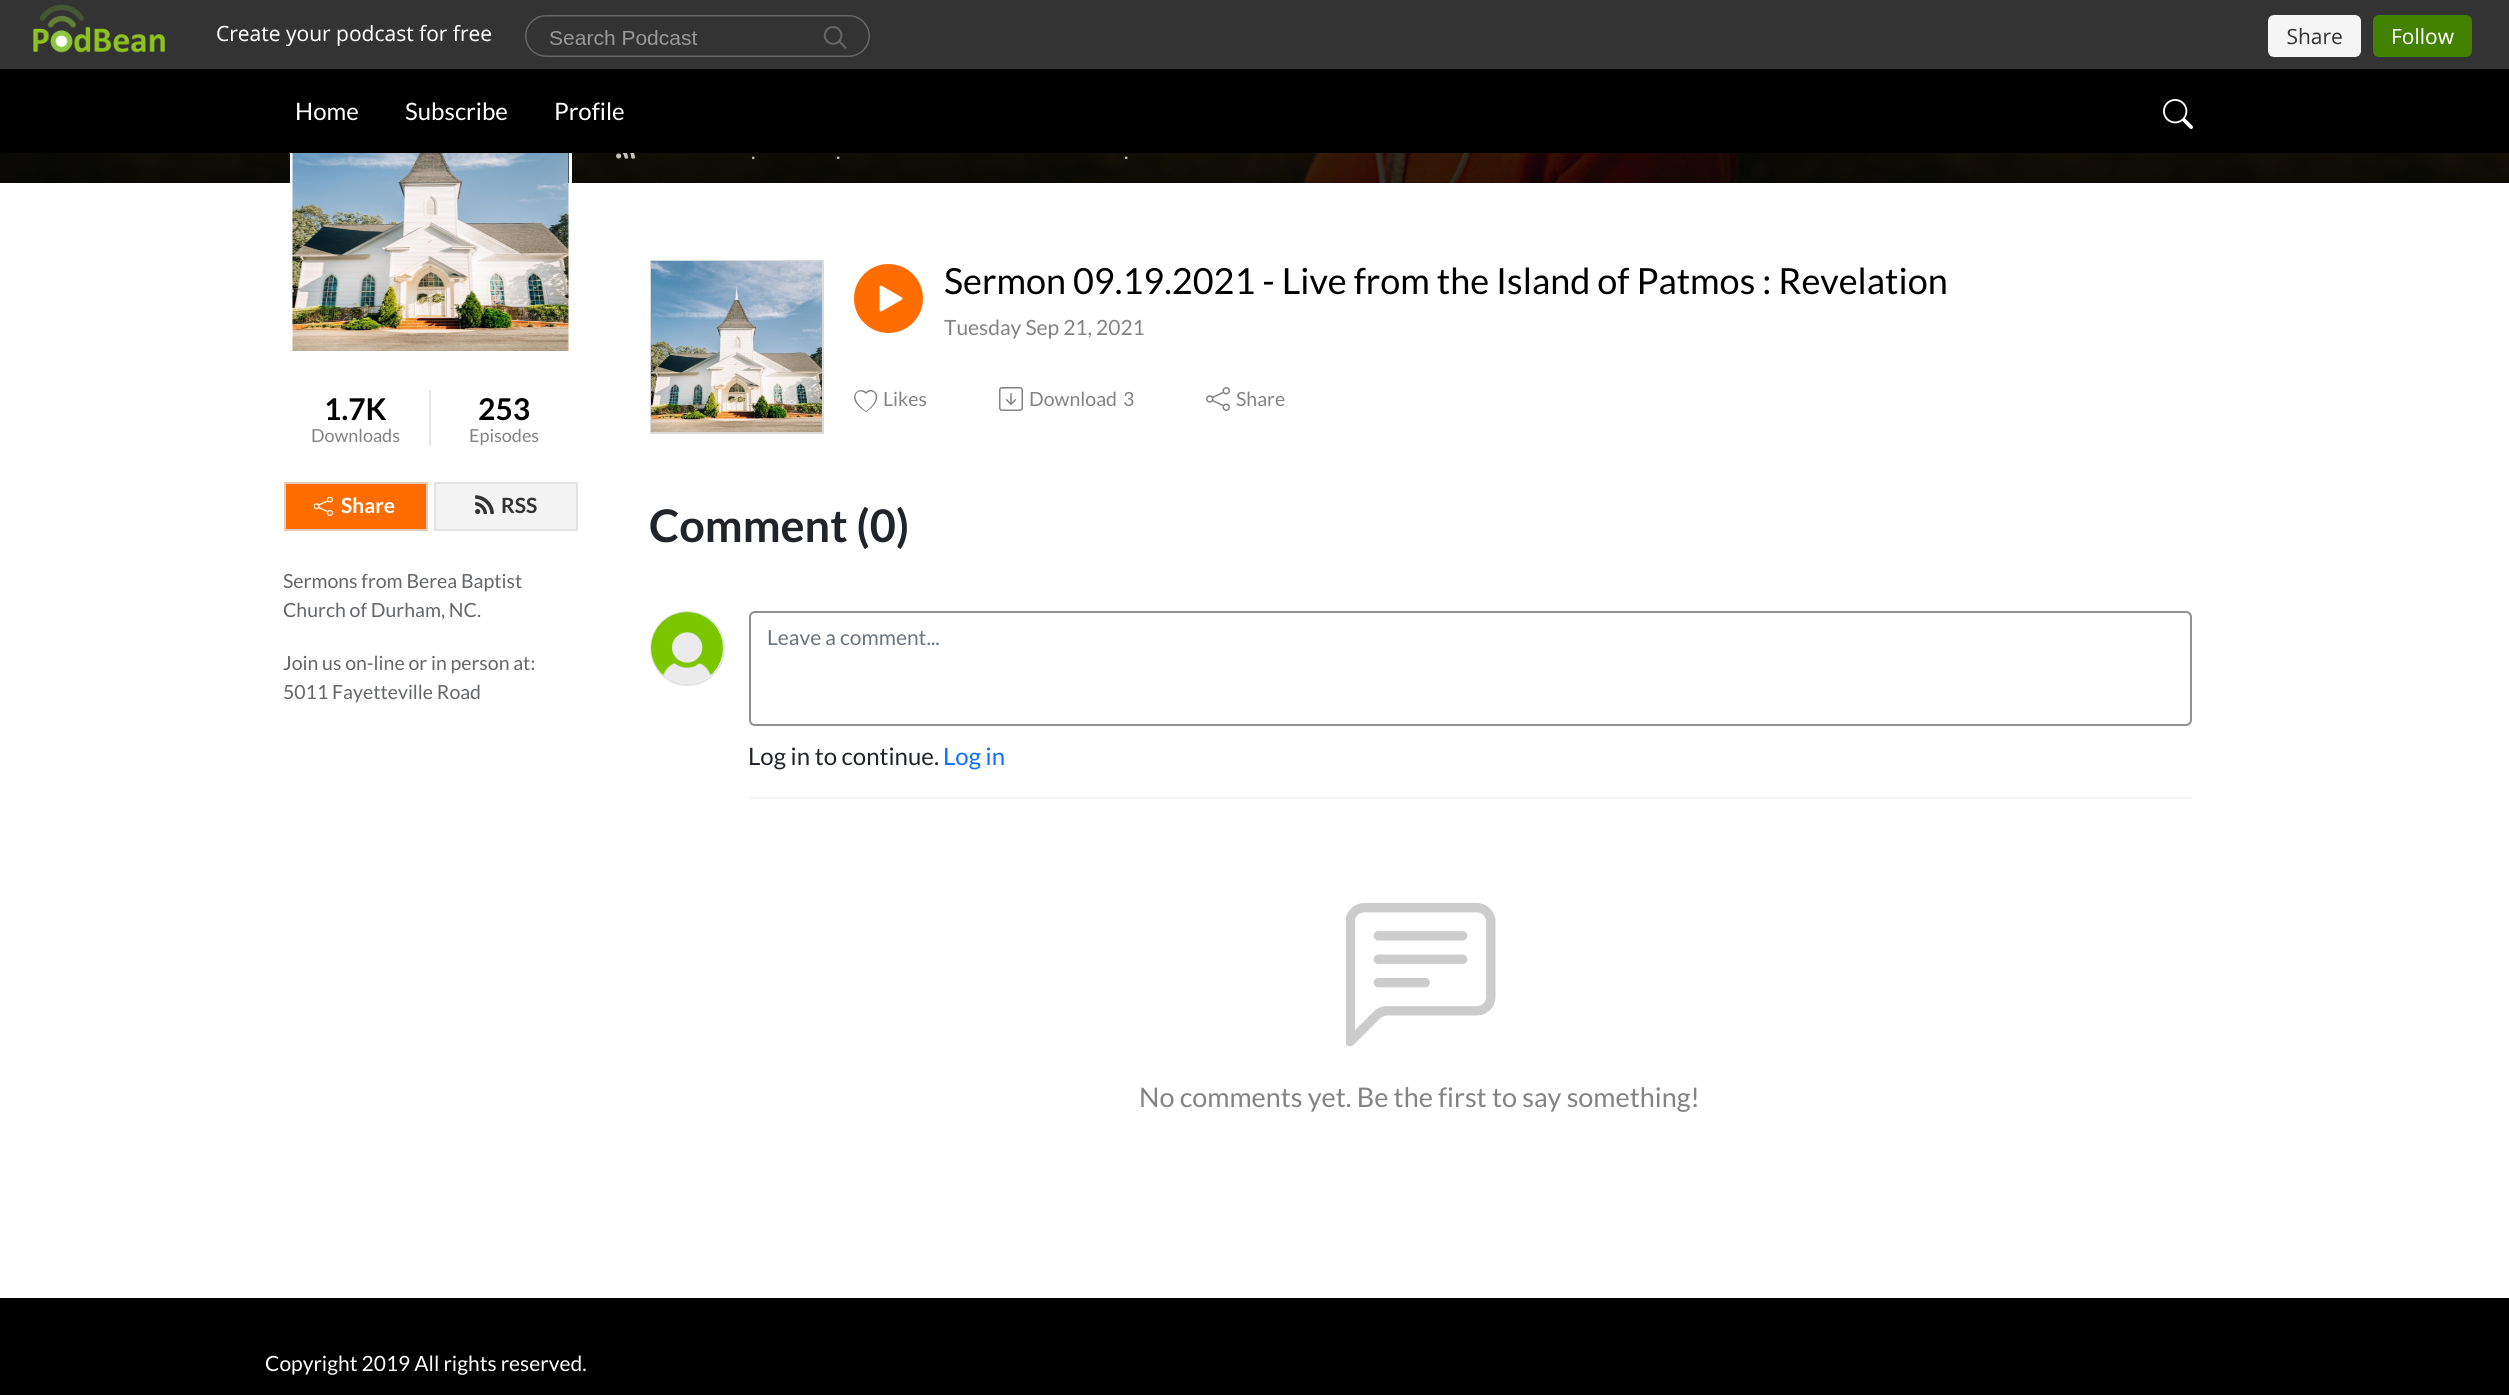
import math
import cairo


def use_color(cr, r, g, b):
  cr.set_source_rgb(r / 255, g / 255, b / 255)

def text(cr, x, y, s, family, size, color, bold=False, italic=False):
  cr.select_font_face(family, cairo.FONT_SLANT_ITALIC if italic else cairo.FONT_SLANT_NORMAL, cairo.FONT_WEIGHT_BOLD if bold else cairo.FONT_WEIGHT_NORMAL)
  cr.set_font_size(size)
  use_color(cr, *color)
  cr.move_to(x, y)
  cr.show_text(s)

def box(cr, x, y, w, h, *color):
  use_color(cr, *color)
  cr.rectangle(x, y, w, h)
  cr.fill()

def round_rect(cr, x, y, w, h, r):
  cr.new_sub_path()
  for i, (u, v) in enumerate([(x + w - r, y + h - r), (x + r, y + h - r), (x + r, y + r), (x + w - r, y + r)]):
    cr.arc(u, v, r, i * math.pi / 2, (i + 1) * math.pi / 2)
  cr.close_path()

def picture(cr, path, x, y, w, h):
  cr.save()
  cr.set_source_surface(cairo.ImageSurface.create_from_png(path), x, y)
  cr.rectangle(x, y, w, h)
  cr.fill()
  cr.restore()

def draw(cr):
  use_color(cr, 255, 255, 255)
  cr.paint()
  box(cr, 0, 0, 2509, 69, 51, 51, 51)
  picture(cr, "img_01.png", 33, 4, 2439, 53)
  picture(cr, "img_03.png", 0, 153, 2509, 30)
  cr.set_source_rgba(0, 0, 0, 0.8)
  cr.rectangle(0, 153, 2509, 30)
  cr.fill()
  cr.rectangle(291.5, 73.5, 279, 279)
  use_color(cr, 255, 255, 255)
  cr.set_line_width(3)
  cr.stroke()
  box(cr, 0, 69, 2509, 84, 0, 0, 0)
  picture(cr, "img_02.png", 2163, 99, 30, 30)
  picture(cr, "img_04.png", 616, 153, 19, 6)
  picture(cr, "img_05.png", 292, 153, 277, 198)
  box(cr, 429, 390, 2, 56, 230, 230, 230)
  use_color(cr, 255, 109, 0)
  cr.rectangle(285, 483, 142, 47)
  cr.fill_preserve()
  use_color(cr, 232, 203, 181)
  cr.set_line_width(2)
  cr.stroke()
  picture(cr, "img_06.png", 314, 497, 19, 19)
  use_color(cr, 244, 244, 244)
  cr.rectangle(435, 483, 142, 47)
  cr.fill_preserve()
  use_color(cr, 226, 226, 226)
  cr.stroke()
  picture(cr, "img_07.png", 475, 495, 19, 20)
  cr.rectangle(651, 261, 172, 172)
  use_color(cr, 218, 218, 218)
  cr.stroke()
  picture(cr, "img_08.png", 651, 261, 171, 171)
  use_color(cr, 255, 109, 0)
  cr.arc(888.5, 298.5, 34.5, 0, 2 * math.pi)
  cr.fill()
  picture(cr, "img_09.png", 879, 285, 24, 27)
  use_color(cr, 131, 131, 131)
  cr.new_path()
  cr.move_to(866, 394)
  cr.curve_to(858, 386, 847, 398, 866, 411)
  cr.curve_to(884, 398, 873, 386, 866, 394)
  cr.close_path()
  cr.move_to(866, 412)
  cr.curve_to(843, 398, 859, 385, 866, 392)
  cr.curve_to(872, 385, 888, 397, 866, 412)
  cr.close_path()
  cr.fill()
  picture(cr, "img_10.png", 999, 387, 24, 24)
  picture(cr, "img_11.png", 1206, 387, 24, 24)
  cr.arc(687.5, 648.5, 36.5, 0, 2 * math.pi)
  use_color(cr, 227, 227, 227)
  cr.stroke()
  picture(cr, "img_12.png", 651, 612, 72, 72)
  box(cr, 749, 797, 1443, 2, 245, 245, 245)
  round_rect(cr, 750, 612, 1441, 113, 5)
  use_color(cr, 144, 144, 144)
  cr.stroke()
  picture(cr, "img_13.png", 1346, 903, 150, 144)
  box(cr, 0, 1298, 2509, 97, 0, 0, 0)
  text(cr, 295, 120, "Home", "Lato", 24, (255, 255, 255))
  text(cr, 405, 120, "Subscribe", "Lato", 24, (255, 255, 255))
  text(cr, 554, 120, "Profile", "Lato", 24, (255, 255, 255))
  text(cr, 751, 159, ".", "Lato", 21, (195, 194, 193))
  text(cr, 836, 159, ".", "Lato", 21, (195, 194, 193))
  text(cr, 1124, 159, ".", "Lato", 21, (195, 194, 193))
  text(cr, 324, 420, "1.7K", "Lato", 30, (0, 0, 0), bold=True)
  text(cr, 311, 442, "Downloads", "Lato", 18, (131, 131, 131))
  text(cr, 478, 420, "253", "Lato", 30, (0, 0, 0), bold=True)
  text(cr, 469, 442, "Episodes", "Lato", 18, (131, 131, 131))
  text(cr, 341, 513, "Share", "Lato", 21, (255, 255, 255), bold=True)
  text(cr, 501, 513, "RSS", "Lato", 21, (51, 51, 51), bold=True)
  text(cr, 283, 588, "Sermons from Berea Baptist", "Lato", 19.5, (100, 102, 105))
  text(cr, 283, 617, "Church of Durham, NC.", "Lato", 19.5, (100, 102, 105))
  text(cr, 283, 670, "Join us on-line or in person at:", "Lato", 19.5, (100, 102, 105))
  text(cr, 283, 699, "5011 Fayetteville Road", "Lato", 19.5, (100, 102, 105))
  text(cr, 944, 294, "Sermon 09.19.2021 - Live from the Island of Patmos : Revelation", "Lato", 36, (0, 0, 0))
  text(cr, 944, 335, "Tuesday Sep 21, 2021", "Lato", 21, (131, 131, 131))
  text(cr, 883, 406, "Likes", "Lato", 19.5, (131, 131, 131))
  text(cr, 1029, 406, "Download", "Lato", 19.5, (131, 131, 131))
  text(cr, 1123, 406, "3", "Lato", 19.5, (131, 131, 131))
  text(cr, 1236, 406, "Share", "Lato", 19.5, (131, 131, 131))
  text(cr, 649, 542, "Comment (0)", "Lato", 45, (33, 37, 41), bold=True)
  text(cr, 767, 645, "Leave a comment...", "Lato", 21, (108, 117, 125))
  text(cr, 748, 765, "Log in to continue.", "Lato", 24, (33, 37, 41))
  text(cr, 943, 765, "Log in", "Lato", 24, (13, 110, 253))
  text(cr, 1139, 1107, "No comments yet. Be the first to say something!", "Lato", 27, (131, 131, 131))
  text(cr, 265, 1371, "Copyright 2019 All rights reserved.", "Lato", 21, (255, 255, 255))


surface = cairo.ImageSurface(cairo.FORMAT_RGB24, 2509, 1395)
cr = cairo.Context(surface)
options = cairo.FontOptions()
options.set_hint_metrics(cairo.HINT_METRICS_OFF)
options.set_hint_style(cairo.HINT_STYLE_NONE)
cr.set_font_options(options)
cr.set_miter_limit(4)
draw(cr)
surface.write_to_png("out.png")
